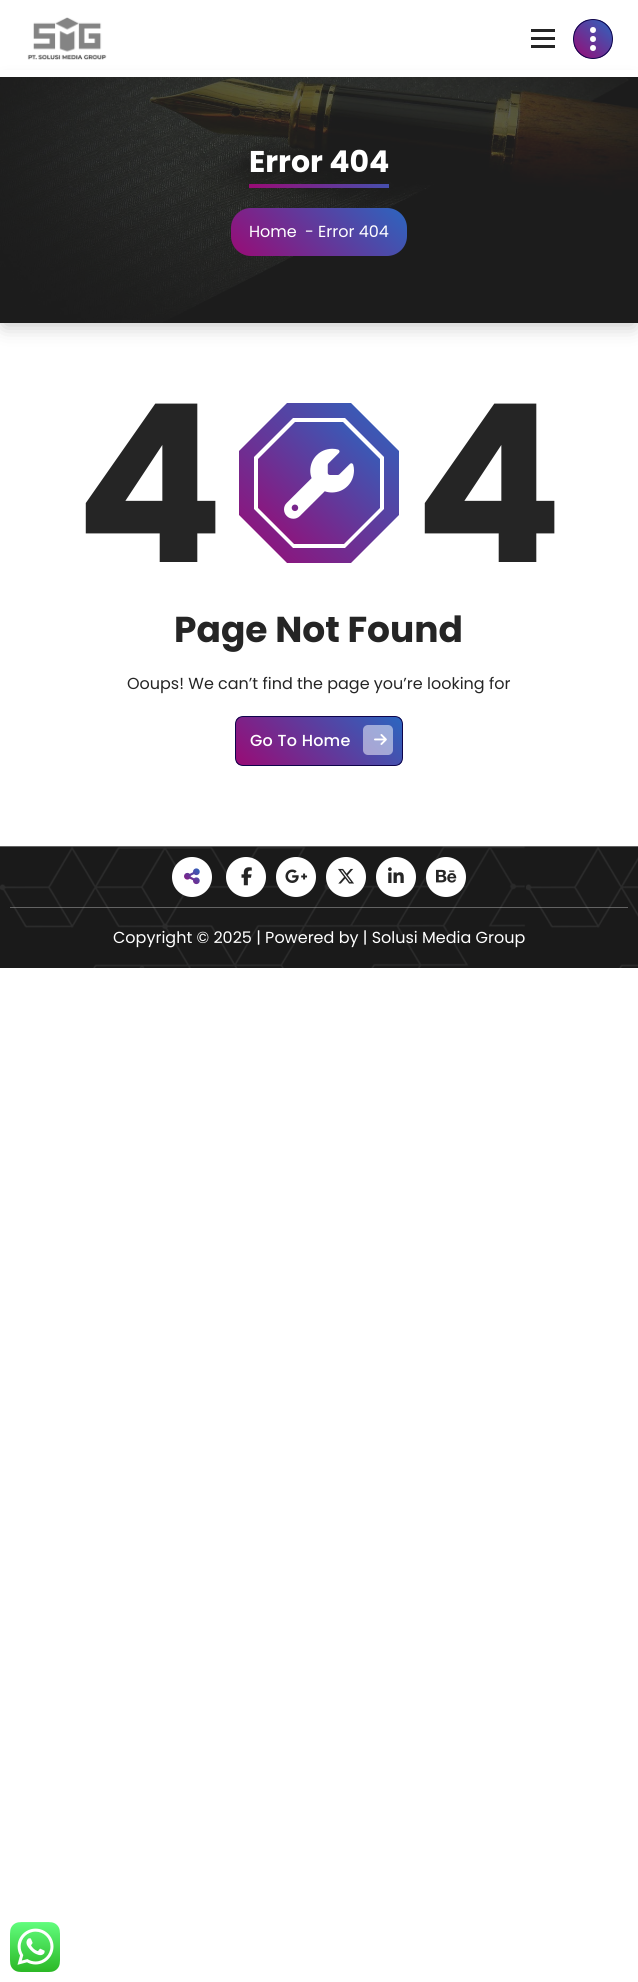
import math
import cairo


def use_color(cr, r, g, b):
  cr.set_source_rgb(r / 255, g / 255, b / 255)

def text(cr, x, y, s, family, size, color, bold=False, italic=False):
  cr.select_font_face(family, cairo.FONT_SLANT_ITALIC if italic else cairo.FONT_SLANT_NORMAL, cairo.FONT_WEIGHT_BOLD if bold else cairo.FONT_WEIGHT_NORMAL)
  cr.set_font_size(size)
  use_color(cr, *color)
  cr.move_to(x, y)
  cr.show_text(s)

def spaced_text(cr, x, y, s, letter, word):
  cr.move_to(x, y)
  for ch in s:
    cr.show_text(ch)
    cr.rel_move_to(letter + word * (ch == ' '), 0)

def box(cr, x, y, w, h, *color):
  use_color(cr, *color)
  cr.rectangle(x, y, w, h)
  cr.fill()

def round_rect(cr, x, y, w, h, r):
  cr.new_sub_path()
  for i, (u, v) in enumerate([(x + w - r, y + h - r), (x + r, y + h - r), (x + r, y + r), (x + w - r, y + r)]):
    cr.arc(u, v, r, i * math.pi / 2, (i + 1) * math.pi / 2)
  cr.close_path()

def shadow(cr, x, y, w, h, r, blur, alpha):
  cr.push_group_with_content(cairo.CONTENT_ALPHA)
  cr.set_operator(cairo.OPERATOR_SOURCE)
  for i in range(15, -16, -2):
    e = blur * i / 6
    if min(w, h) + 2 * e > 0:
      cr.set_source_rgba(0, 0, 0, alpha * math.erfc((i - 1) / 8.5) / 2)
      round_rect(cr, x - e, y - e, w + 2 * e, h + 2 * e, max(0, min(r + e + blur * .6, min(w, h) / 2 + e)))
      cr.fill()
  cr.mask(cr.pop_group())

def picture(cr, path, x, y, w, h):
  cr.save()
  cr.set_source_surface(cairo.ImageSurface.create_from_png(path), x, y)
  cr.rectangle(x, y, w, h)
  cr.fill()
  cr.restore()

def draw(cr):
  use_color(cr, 255, 255, 255)
  cr.paint()
  use_color(cr, 0, 0, 0)
  shadow(cr, 4, 87, 630, 238, 0, 10, 0.25)
  box(cr, 0, 70, 638, 7, 255, 255, 255)
  picture(cr, "img_01.png", 27, 17, 80, 43)
  box(cr, 531, 29, 24, 3, 37, 37, 37)
  box(cr, 531, 37, 24, 3, 37, 37, 37)
  box(cr, 531, 45, 24, 3, 37, 37, 37)
  cr.save()
  round_rect(cr, 573, 19, 40, 40, 20)
  cr.clip()
  gradient = cairo.LinearGradient(611, 19, 575, 59)
  gradient.add_color_stop_rgba(0, 0.169, 0.4, 0.753, 1)
  gradient.add_color_stop_rgba(1, 0.6, 0.043, 0.459, 1)
  cr.set_source(gradient)
  cr.rectangle(574, 20, 38, 38)
  cr.fill()
  cr.restore()
  cr.arc(593, 39, 19.5, 0, 2 * math.pi)
  use_color(cr, 14, 4, 75)
  cr.set_line_width(1)
  cr.stroke()
  use_color(cr, 255, 255, 255)
  cr.arc(593, 39, 3, 0, 2 * math.pi)
  cr.fill()
  cr.arc(593, 30, 3, 0, 2 * math.pi)
  cr.fill()
  cr.arc(593, 48, 3, 0, 2 * math.pi)
  cr.fill()
  picture(cr, "img_02.png", 0, 77, 638, 246)
  picture(cr, "img_03.png", 249, 184, 140, 4)
  gradient = cairo.LinearGradient(372, 175, 266, 289)
  gradient.add_color_stop_rgba(0, 0.169, 0.4, 0.753, 1)
  gradient.add_color_stop_rgba(1, 0.6, 0.043, 0.459, 1)
  cr.set_source(gradient)
  round_rect(cr, 231, 208, 176, 48, 20)
  cr.fill()
  gradient = cairo.LinearGradient(396, 400, 242, 566)
  gradient.add_color_stop_rgba(0, 0.169, 0.4, 0.753, 1)
  gradient.add_color_stop_rgba(1, 0.6, 0.043, 0.459, 1)
  cr.set_source(gradient)
  cr.new_path()
  cr.move_to(287, 403)
  cr.line_to(239, 451)
  cr.line_to(239, 515)
  cr.line_to(287, 563)
  cr.line_to(351, 563)
  cr.line_to(399, 515)
  cr.line_to(399, 451)
  cr.line_to(351, 403)
  cr.close_path()
  cr.fill()
  use_color(cr, 255, 255, 255)
  cr.new_path()
  cr.move_to(293, 418)
  cr.line_to(254, 457)
  cr.line_to(254, 509)
  cr.line_to(293, 548)
  cr.line_to(345, 548)
  cr.line_to(384, 509)
  cr.line_to(384, 457)
  cr.line_to(345, 418)
  cr.close_path()
  cr.fill()
  gradient = cairo.LinearGradient(378, 420, 260, 546)
  gradient.add_color_stop_rgba(0, 0.169, 0.4, 0.753, 1)
  gradient.add_color_stop_rgba(1, 0.6, 0.043, 0.459, 1)
  cr.set_source(gradient)
  cr.new_path()
  cr.move_to(295, 422)
  cr.line_to(258, 459)
  cr.line_to(258, 508)
  cr.line_to(294, 544)
  cr.line_to(344, 544)
  cr.line_to(380, 508)
  cr.line_to(380, 459)
  cr.line_to(343, 422)
  cr.close_path()
  cr.fill()
  picture(cr, "img_04.png", 284, 448, 70, 71)
  cr.save()
  round_rect(cr, 235, 716, 168, 50, 8)
  cr.clip()
  gradient = cairo.LinearGradient(370, 687, 268, 795)
  gradient.add_color_stop_rgba(0, 0.169, 0.4, 0.753, 1)
  gradient.add_color_stop_rgba(1, 0.6, 0.043, 0.459, 1)
  cr.set_source(gradient)
  cr.rectangle(236, 717, 166, 48)
  cr.fill()
  cr.restore()
  round_rect(cr, 235.5, 716.5, 167, 49, 7.5)
  use_color(cr, 14, 4, 75)
  cr.stroke()
  cr.set_source_rgba(1, 1, 1, 0.5)
  round_rect(cr, 363, 725, 30, 30, 5)
  cr.fill()
  picture(cr, "img_05.png", 374, 734, 13, 11)
  box(cr, 0, 846, 638, 122, 26, 26, 26)
  picture(cr, "img_06.png", 0, 846, 638, 122)
  cr.set_source_rgba(0.741, 0.741, 0.741, 0.45)
  cr.rectangle(0, 846, 638, 1)
  cr.fill()
  cr.rectangle(10, 907, 618, 1)
  cr.fill()
  use_color(cr, 255, 255, 255)
  cr.arc(192, 877, 20, 0, 2 * math.pi)
  cr.fill()
  picture(cr, "img_07.png", 184, 868, 16, 17)
  cr.arc(246, 877, 20, 0, 2 * math.pi)
  cr.fill()
  picture(cr, "img_08.png", 241, 867, 11, 19)
  cr.arc(296, 877, 20, 0, 2 * math.pi)
  cr.fill()
  picture(cr, "img_09.png", 285, 869, 23, 14)
  cr.arc(346, 877, 20, 0, 2 * math.pi)
  cr.fill()
  picture(cr, "img_10.png", 338, 868, 16, 16)
  cr.arc(396, 877, 20, 0, 2 * math.pi)
  cr.fill()
  picture(cr, "img_11.png", 388, 867, 16, 16)
  cr.arc(446, 877, 20, 0, 2 * math.pi)
  cr.fill()
  picture(cr, "img_12.png", 436, 869, 21, 14)
  picture(cr, "img_13.png", 10, 1922, 50, 50)
  text(cr, 249, 172, "Error 404", "Poppins", 30, (255, 255, 255), bold=True)
  text(cr, 249, 237, "Home", "Poppins", 16, (255, 255, 255))
  text(cr, 305, 237, "- Error 404", "Poppins", 16, (255, 255, 255))
  text(cr, 75, 562, "4", "Poppins", 220, (37, 37, 37), bold=True)
  text(cr, 414, 562, "4", "Poppins", 220, (37, 37, 37), bold=True)
  text(cr, 174, 642, "Page Not Found", "Poppins", 36, (37, 37, 37), bold=True)
  text(cr, 127, 689, "Ooups! We can’t find the page you’re looking for", "Poppins", 16, (37, 37, 37))
  cr.select_font_face("Poppins Medium")
  use_color(cr, 255, 255, 255)
  spaced_text(cr, 250, 746, "Go To Home", 0.25, 0)
  text(cr, 113, 943, "Copyright © 2025 | Powered by | Solusi Media Group", "Poppins", 16, (255, 255, 255))


surface = cairo.ImageSurface(cairo.FORMAT_RGB24, 638, 1982)
cr = cairo.Context(surface)
options = cairo.FontOptions()
options.set_hint_metrics(cairo.HINT_METRICS_OFF)
options.set_hint_style(cairo.HINT_STYLE_NONE)
cr.set_font_options(options)
cr.set_miter_limit(4)
draw(cr)
surface.write_to_png("out.png")
